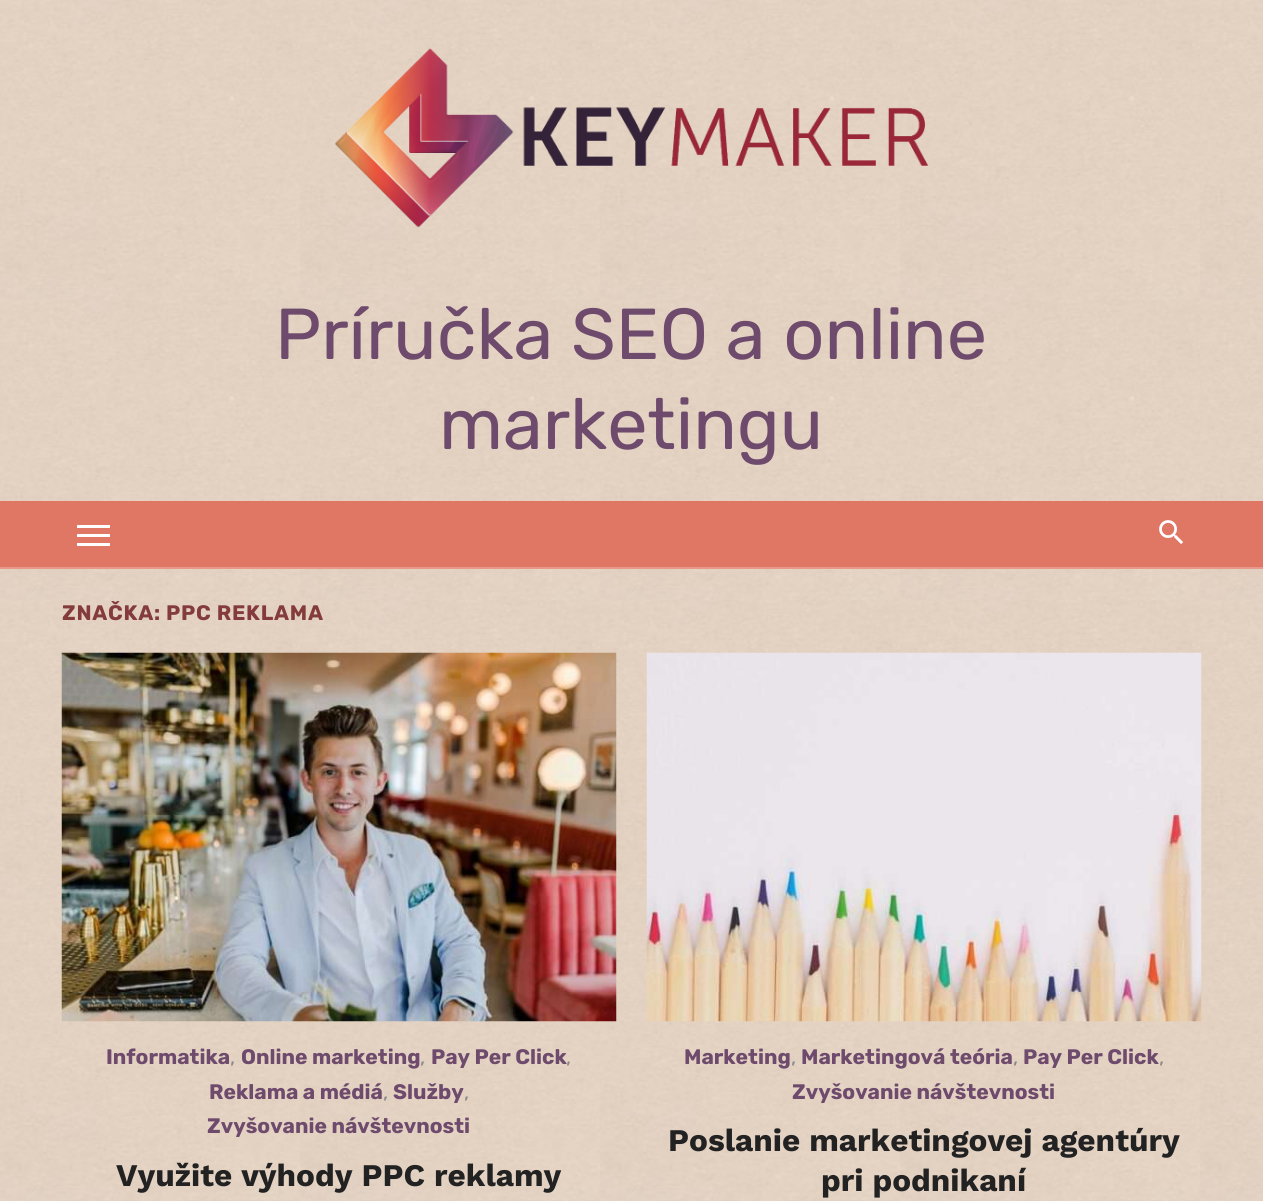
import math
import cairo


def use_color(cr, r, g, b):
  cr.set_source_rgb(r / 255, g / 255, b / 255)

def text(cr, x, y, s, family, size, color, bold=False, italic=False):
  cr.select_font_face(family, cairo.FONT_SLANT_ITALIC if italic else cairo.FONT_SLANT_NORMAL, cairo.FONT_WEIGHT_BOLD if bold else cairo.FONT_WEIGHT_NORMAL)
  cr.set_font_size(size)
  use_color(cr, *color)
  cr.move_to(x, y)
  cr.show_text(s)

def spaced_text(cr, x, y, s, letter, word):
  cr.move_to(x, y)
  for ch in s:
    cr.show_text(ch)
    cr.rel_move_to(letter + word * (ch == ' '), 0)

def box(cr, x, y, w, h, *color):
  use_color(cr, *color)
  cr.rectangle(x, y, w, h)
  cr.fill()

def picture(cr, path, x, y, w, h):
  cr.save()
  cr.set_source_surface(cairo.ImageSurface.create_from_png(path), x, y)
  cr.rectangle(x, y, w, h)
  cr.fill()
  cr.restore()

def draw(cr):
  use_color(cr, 255, 255, 255)
  cr.paint()
  picture(cr, "img_01.png", 0, 0, 1263, 1201)
  picture(cr, "img_02.png", 335, 48, 594, 180)
  box(cr, 0, 501, 1263, 66, 224, 118, 100)
  box(cr, 77, 534, 33, 3, 255, 255, 255)
  box(cr, 77, 525, 33, 3, 255, 255, 255)
  box(cr, 77, 543, 33, 3, 255, 255, 255)
  picture(cr, "img_03.png", 1159, 520, 25, 24)
  box(cr, 0, 567, 1263, 2, 232, 152, 139)
  picture(cr, "img_04.png", 61, 652, 556, 370)
  picture(cr, "img_05.png", 646, 652, 556, 370)
  text(cr, 275, 359, "Príručka SEO a online", "Rubik", 72, (110, 74, 108))
  text(cr, 439, 449, "marketingu", "Rubik", 72, (110, 74, 108))
  cr.select_font_face("Rubik", cairo.FONT_SLANT_NORMAL, cairo.FONT_WEIGHT_BOLD)
  cr.set_font_size(21)
  use_color(cr, 132, 59, 59)
  spaced_text(cr, 62, 620, "ZNAČKA: PPC REKLAMA", 0.75, 0)
  text(cr, 106, 1064, "Informatika", "Rubik", 21, (110, 74, 108), bold=True)
  text(cr, 230, 1064, ",", "Rubik", 21, (136, 136, 136))
  text(cr, 241, 1064, "Online marketing", "Rubik", 21, (110, 74, 108), bold=True)
  text(cr, 420, 1064, ",", "Rubik", 21, (136, 136, 136))
  text(cr, 431, 1064, "Pay Per Click", "Rubik", 21, (110, 74, 108), bold=True)
  text(cr, 566, 1064, ",", "Rubik", 21, (136, 136, 136))
  text(cr, 209, 1099, "Reklama a médiá", "Rubik", 21, (110, 74, 108), bold=True)
  text(cr, 383, 1099, ",", "Rubik", 21, (136, 136, 136))
  text(cr, 393, 1099, "Služby", "Rubik", 21, (110, 74, 108), bold=True)
  text(cr, 464, 1099, ",", "Rubik", 21, (136, 136, 136))
  text(cr, 207, 1133, "Zvyšovanie návštevnosti", "Rubik", 21, (110, 74, 108), bold=True)
  text(cr, 116, 1186, "Využite výhody PPC reklamy", "Work Sans", 31.5, (34, 34, 34), bold=True)
  text(cr, 684, 1064, "Marketing", "Rubik", 21, (110, 74, 108), bold=True)
  text(cr, 791, 1064, ",", "Rubik", 21, (136, 136, 136))
  text(cr, 801, 1064, "Marketingová teória", "Rubik", 21, (110, 74, 108), bold=True)
  text(cr, 1013, 1064, ",", "Rubik", 21, (136, 136, 136))
  text(cr, 1023, 1064, "Pay Per Click", "Rubik", 21, (110, 74, 108), bold=True)
  text(cr, 1159, 1064, ",", "Rubik", 21, (136, 136, 136))
  text(cr, 792, 1099, "Zvyšovanie návštevnosti", "Rubik", 21, (110, 74, 108), bold=True)
  text(cr, 668, 1151, "Poslanie marketingovej agentúry", "Work Sans", 31.5, (34, 34, 34), bold=True)
  text(cr, 821, 1191, "pri podnikaní", "Work Sans", 31.5, (34, 34, 34), bold=True)


surface = cairo.ImageSurface(cairo.FORMAT_RGB24, 1263, 1201)
cr = cairo.Context(surface)
options = cairo.FontOptions()
options.set_hint_metrics(cairo.HINT_METRICS_OFF)
options.set_hint_style(cairo.HINT_STYLE_NONE)
cr.set_font_options(options)
cr.set_miter_limit(4)
draw(cr)
surface.write_to_png("out.png")
